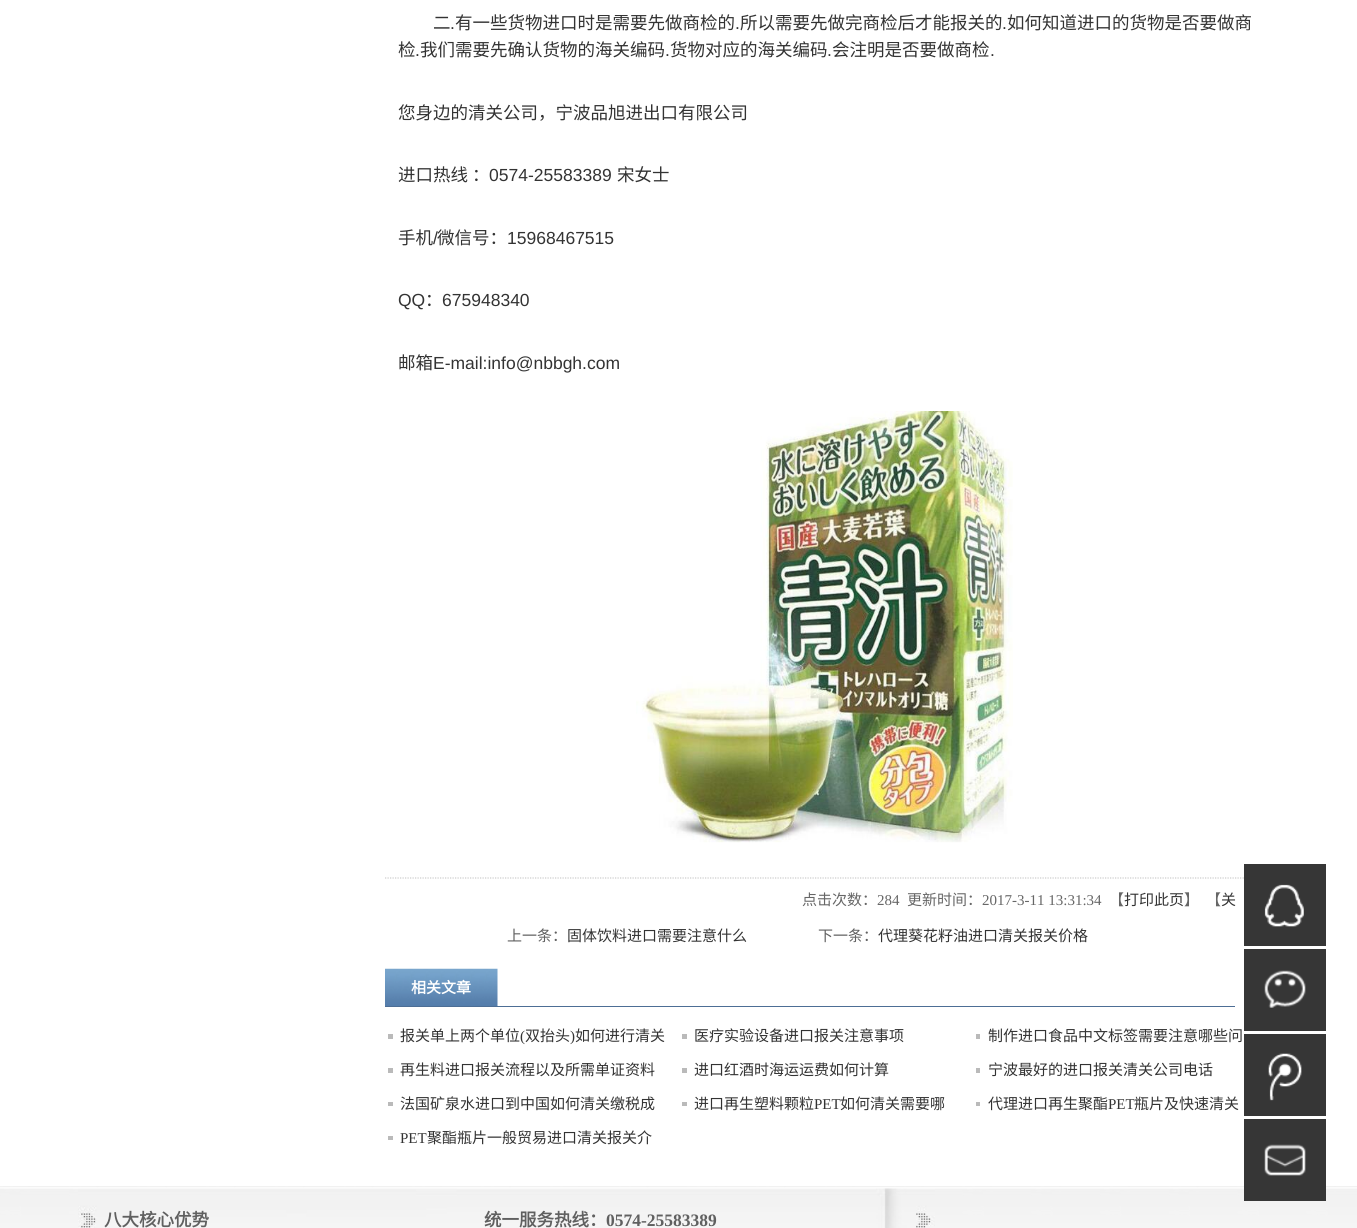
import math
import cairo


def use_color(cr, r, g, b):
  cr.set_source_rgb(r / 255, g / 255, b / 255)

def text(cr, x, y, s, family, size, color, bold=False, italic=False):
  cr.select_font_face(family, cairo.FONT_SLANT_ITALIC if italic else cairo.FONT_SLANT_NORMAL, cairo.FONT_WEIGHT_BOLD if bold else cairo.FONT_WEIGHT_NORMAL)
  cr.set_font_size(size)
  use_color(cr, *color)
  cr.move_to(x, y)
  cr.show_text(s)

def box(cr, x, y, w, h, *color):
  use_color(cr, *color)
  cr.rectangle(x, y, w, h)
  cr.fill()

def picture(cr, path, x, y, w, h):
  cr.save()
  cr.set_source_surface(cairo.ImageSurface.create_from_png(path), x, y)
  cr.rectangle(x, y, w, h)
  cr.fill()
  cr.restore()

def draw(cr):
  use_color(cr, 255, 255, 255)
  cr.paint()
  picture(cr, "img_01.png", 636, 411, 377, 432)
  cr.new_path()
  cr.move_to(385, 878)
  cr.line_to(1272.5, 878)
  use_color(cr, 204, 204, 204)
  cr.set_line_width(1.2)
  cr.set_dash([1.25, 1.25])
  cr.stroke()
  box(cr, 385, 1006, 850, 1, 77, 110, 149)
  picture(cr, "img_02.png", 385, 968, 113, 38)
  box(cr, 388, 1034, 5, 5, 186, 186, 186)
  box(cr, 682, 1034, 5, 5, 186, 186, 186)
  box(cr, 976, 1034, 4, 5, 186, 186, 186)
  box(cr, 388, 1068, 5, 5, 186, 186, 186)
  box(cr, 682, 1068, 5, 5, 186, 186, 186)
  box(cr, 976, 1068, 4, 5, 186, 186, 186)
  box(cr, 388, 1102, 5, 4, 186, 186, 186)
  box(cr, 682, 1102, 5, 4, 186, 186, 186)
  box(cr, 976, 1102, 4, 4, 186, 186, 186)
  box(cr, 388, 1136, 5, 4, 186, 186, 186)
  box(cr, 1244, 864, 82, 82, 54, 54, 54)
  picture(cr, "img_03.png", 1264, 884, 40, 43)
  box(cr, 1244, 949, 82, 82, 54, 54, 54)
  picture(cr, "img_04.png", 1264, 970, 42, 38)
  box(cr, 1244, 1034, 82, 82, 54, 54, 54)
  picture(cr, "img_05.png", 1268, 1053, 34, 48)
  picture(cr, "img_07.png", 0, 1186, 1357, 42)
  box(cr, 1244, 1119, 82, 82, 54, 54, 54)
  picture(cr, "img_06.png", 1264, 1144, 42, 32)
  picture(cr, "img_08.png", 78, 1188, 857, 40)
  text(cr, 433, 29, "二", "Noto Sans CJK SC", 17.5, (51, 51, 51))
  text(cr, 450, 29, ".", "Liberation Sans", 17.5, (51, 51, 51))
  text(cr, 455, 29, "有一些货物进口时是需要先做商检的", "Noto Sans CJK SC", 17.5, (51, 51, 51))
  text(cr, 735, 29, ".", "Liberation Sans", 17.5, (51, 51, 51))
  text(cr, 740, 29, "所以需要先做完商检后才能报关的", "Noto Sans CJK SC", 17.5, (51, 51, 51))
  text(cr, 1002, 29, ".", "Liberation Sans", 17.5, (51, 51, 51))
  text(cr, 1007, 29, "如何知道进口的货物是否要做商", "Noto Sans CJK SC", 17.5, (51, 51, 51))
  text(cr, 398, 56, "检", "Noto Sans CJK SC", 17.5, (51, 51, 51))
  text(cr, 415, 56, ".", "Liberation Sans", 17.5, (51, 51, 51))
  text(cr, 420, 56, "我们需要先确认货物的海关编码", "Noto Sans CJK SC", 17.5, (51, 51, 51))
  text(cr, 665, 56, ".", "Liberation Sans", 17.5, (51, 51, 51))
  text(cr, 670, 56, "货物对应的海关编码", "Noto Sans CJK SC", 17.5, (51, 51, 51))
  text(cr, 827, 56, ".", "Liberation Sans", 17.5, (51, 51, 51))
  text(cr, 832, 56, "会注明是否要做商检", "Noto Sans CJK SC", 17.5, (51, 51, 51))
  text(cr, 990, 56, ".", "Liberation Sans", 17.5, (51, 51, 51))
  text(cr, 398, 119, "您身边的清关公司，宁波品旭进出口有限公司", "Noto Sans CJK SC", 17.5, (51, 51, 51))
  text(cr, 398, 181, "进口热线 ：", "Noto Sans CJK SC", 17.5, (51, 51, 51))
  text(cr, 489, 181, "0574-25583389", "Liberation Sans", 17.5, (51, 51, 51))
  text(cr, 617, 181, "宋女士", "Noto Sans CJK SC", 17.5, (51, 51, 51))
  text(cr, 398, 244, "手机", "Noto Sans CJK SC", 17.5, (51, 51, 51))
  text(cr, 433, 244, "/", "Liberation Sans", 17.5, (51, 51, 51))
  text(cr, 437, 244, "微信号：", "Noto Sans CJK SC", 17.5, (51, 51, 51))
  text(cr, 507, 244, "15968467515", "Liberation Sans", 17.5, (51, 51, 51))
  text(cr, 398, 306, "QQ", "Liberation Sans", 17.5, (51, 51, 51))
  text(cr, 425, 306, "：", "Noto Sans CJK SC", 17.5, (51, 51, 51))
  text(cr, 442, 306, "675948340", "Liberation Sans", 17.5, (51, 51, 51))
  text(cr, 398, 369, "邮箱", "Noto Sans CJK SC", 17.5, (51, 51, 51))
  text(cr, 433, 369, "E-mail:info@nbbgh.com", "Liberation Sans", 17.5, (51, 51, 51))
  text(cr, 802, 905, "点击次数：", "Noto Sans CJK SC", 15, (102, 102, 102))
  text(cr, 877, 905, "284", "Liberation Serif", 15, (102, 102, 102))
  text(cr, 907, 905, "更新时间：", "Noto Sans CJK SC", 15, (102, 102, 102))
  text(cr, 982, 905, "2017-3-11 13:31:34", "Liberation Serif", 15, (102, 102, 102))
  text(cr, 1109, 905, "【", "Noto Sans CJK SC", 15, (102, 102, 102))
  text(cr, 1124, 905, "打印此页", "Noto Sans CJK SC", 15, (51, 51, 51))
  text(cr, 1184, 905, "】", "Noto Sans CJK SC", 15, (102, 102, 102))
  text(cr, 1206, 905, "【", "Noto Sans CJK SC", 15, (102, 102, 102))
  text(cr, 1221, 905, "关", "Noto Sans CJK SC", 15, (51, 51, 51))
  text(cr, 507, 941, "上一条：", "Noto Sans CJK SC", 15, (96, 96, 96))
  text(cr, 567, 941, "固体饮料进口需要注意什么", "Noto Sans CJK SC", 15, (51, 51, 51))
  text(cr, 818, 941, "下一条：", "Noto Sans CJK SC", 15, (96, 96, 96))
  text(cr, 878, 941, "代理葵花籽油进口清关报关价格", "Noto Sans CJK SC", 15, (51, 51, 51))
  text(cr, 411, 993, "相关文章", "Noto Sans CJK SC", 15, (255, 255, 255), bold=True)
  text(cr, 400, 1041, "报关单上两个单位", "Noto Sans CJK SC", 15, (51, 51, 51))
  text(cr, 520, 1041, "(", "Liberation Serif", 15, (51, 51, 51))
  text(cr, 525, 1041, "双抬头", "Noto Sans CJK SC", 15, (51, 51, 51))
  text(cr, 570, 1041, ")", "Liberation Serif", 15, (51, 51, 51))
  text(cr, 575, 1041, "如何进行清关", "Noto Sans CJK SC", 15, (51, 51, 51))
  text(cr, 694, 1041, "医疗实验设备进口报关注意事项", "Noto Sans CJK SC", 15, (51, 51, 51))
  text(cr, 988, 1041, "制作进口食品中文标签需要注意哪些问", "Noto Sans CJK SC", 15, (51, 51, 51))
  text(cr, 400, 1075, "再生料进口报关流程以及所需单证资料", "Noto Sans CJK SC", 15, (51, 51, 51))
  text(cr, 694, 1075, "进口红酒时海运运费如何计算", "Noto Sans CJK SC", 15, (51, 51, 51))
  text(cr, 988, 1075, "宁波最好的进口报关清关公司电话", "Noto Sans CJK SC", 15, (51, 51, 51))
  text(cr, 400, 1109, "法国矿泉水进口到中国如何清关缴税成", "Noto Sans CJK SC", 15, (51, 51, 51))
  text(cr, 694, 1109, "进口再生塑料颗粒", "Noto Sans CJK SC", 15, (51, 51, 51))
  text(cr, 814, 1109, "PET", "Liberation Serif", 15, (51, 51, 51))
  text(cr, 840, 1109, "如何清关需要哪", "Noto Sans CJK SC", 15, (51, 51, 51))
  text(cr, 988, 1109, "代理进口再生聚酯", "Noto Sans CJK SC", 15, (51, 51, 51))
  text(cr, 1108, 1109, "PET", "Liberation Serif", 15, (51, 51, 51))
  text(cr, 1134, 1109, "瓶片及快速清关", "Noto Sans CJK SC", 15, (51, 51, 51))
  text(cr, 400, 1143, "PET", "Liberation Serif", 15, (51, 51, 51))
  text(cr, 427, 1143, "聚酯瓶片一般贸易进口清关报关介", "Noto Sans CJK SC", 15, (51, 51, 51))
  text(cr, 104, 1226, "八大核心优势", "Noto Sans CJK SC", 17.5, (96, 96, 96), bold=True)
  text(cr, 484, 1226, "统一服务热线：", "Noto Sans CJK SC", 17.5, (96, 96, 96), bold=True)
  text(cr, 606, 1226, "0574-25583389", "Liberation Serif", 17.5, (96, 96, 96), bold=True)


surface = cairo.ImageSurface(cairo.FORMAT_RGB24, 1357, 1228)
cr = cairo.Context(surface)
options = cairo.FontOptions()
options.set_hint_metrics(cairo.HINT_METRICS_OFF)
options.set_hint_style(cairo.HINT_STYLE_NONE)
cr.set_font_options(options)
cr.set_miter_limit(4)
draw(cr)
surface.write_to_png("out.png")
